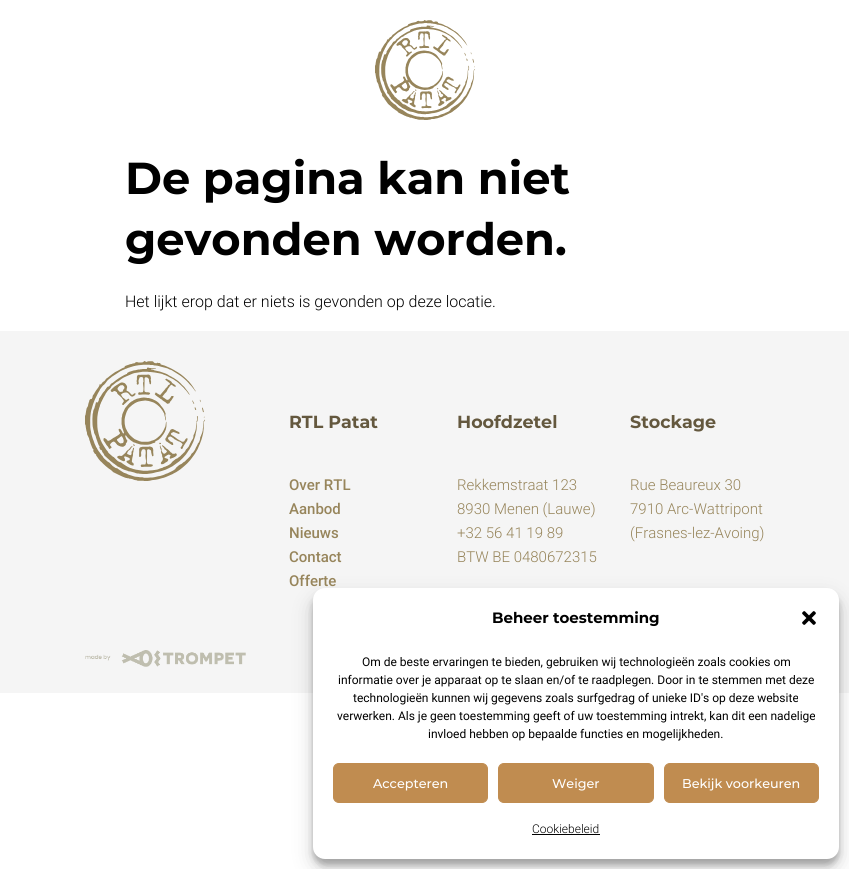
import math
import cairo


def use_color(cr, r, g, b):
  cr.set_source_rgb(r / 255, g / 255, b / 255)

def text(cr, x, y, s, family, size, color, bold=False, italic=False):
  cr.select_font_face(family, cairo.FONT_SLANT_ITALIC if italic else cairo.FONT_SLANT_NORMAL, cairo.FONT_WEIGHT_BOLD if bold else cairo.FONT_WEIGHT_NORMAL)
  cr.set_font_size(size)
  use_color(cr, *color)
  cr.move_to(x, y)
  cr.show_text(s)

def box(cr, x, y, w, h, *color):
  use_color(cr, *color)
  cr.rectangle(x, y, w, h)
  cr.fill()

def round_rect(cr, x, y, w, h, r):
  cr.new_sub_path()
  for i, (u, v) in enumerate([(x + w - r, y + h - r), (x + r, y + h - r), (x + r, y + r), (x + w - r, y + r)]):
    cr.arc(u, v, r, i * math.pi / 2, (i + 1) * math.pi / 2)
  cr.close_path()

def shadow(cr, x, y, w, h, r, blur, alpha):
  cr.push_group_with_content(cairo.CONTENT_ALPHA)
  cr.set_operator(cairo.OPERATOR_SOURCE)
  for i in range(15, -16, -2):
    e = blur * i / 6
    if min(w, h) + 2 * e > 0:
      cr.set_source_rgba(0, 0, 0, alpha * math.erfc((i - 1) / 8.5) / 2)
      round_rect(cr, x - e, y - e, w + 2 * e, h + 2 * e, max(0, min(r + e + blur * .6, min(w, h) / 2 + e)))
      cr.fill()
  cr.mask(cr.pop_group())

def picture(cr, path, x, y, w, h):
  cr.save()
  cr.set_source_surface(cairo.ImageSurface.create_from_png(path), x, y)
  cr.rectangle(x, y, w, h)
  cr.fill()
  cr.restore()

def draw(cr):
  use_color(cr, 255, 255, 255)
  cr.paint()
  picture(cr, "img_01.png", 375, 20, 100, 100)
  box(cr, 0, 331, 849, 362, 245, 245, 245)
  picture(cr, "img_02.png", 85, 361, 120, 120)
  picture(cr, "img_03.png", 85, 650, 161, 17)
  use_color(cr, 0, 0, 0)
  shadow(cr, 313, 594, 526, 271, 12, 3, 0.23)
  shadow(cr, 313, 598, 526, 271, 12, 10, 0.19)
  use_color(cr, 255, 255, 255)
  round_rect(cr, 313, 588, 526, 271, 12)
  cr.fill()
  picture(cr, "img_04.png", 802, 611, 14, 14)
  use_color(cr, 192, 140, 80)
  round_rect(cr, 333.5, 763.5, 154, 39, 5.5)
  cr.fill_preserve()
  cr.set_line_width(1)
  cr.stroke()
  round_rect(cr, 498.5, 763.5, 155, 39, 5.5)
  cr.fill_preserve()
  cr.stroke()
  round_rect(cr, 664.5, 763.5, 154, 39, 5.5)
  cr.fill_preserve()
  cr.stroke()
  box(cr, 532, 834, 68, 1, 0, 0, 0)
  text(cr, 125, 194, "De pagina kan niet", "Montserrat", 44.75, (0, 0, 0), bold=True)
  text(cr, 125, 255, "gevonden worden.", "Montserrat", 44.75, (0, 0, 0), bold=True)
  text(cr, 125, 307, "Het lijkt erop dat er niets is gevonden op deze locatie.", "Roboto Light", 16, (0, 0, 0))
  text(cr, 289, 428, "RTL Patat", "Montserrat", 17.5, (100, 88, 62), bold=True)
  text(cr, 289, 490, "Over RTL", "Roboto Medium", 15, (151, 133, 91))
  text(cr, 289, 514, "Aanbod", "Roboto Medium", 15, (151, 133, 91))
  text(cr, 289, 538, "Nieuws", "Roboto Medium", 15, (151, 133, 91))
  text(cr, 289, 562, "Contact", "Roboto Medium", 15, (151, 133, 91))
  text(cr, 289, 586, "Offerte", "Roboto Medium", 15, (151, 133, 91))
  text(cr, 457, 428, "Hoofdzetel", "Montserrat", 17.5, (100, 88, 62), bold=True)
  text(cr, 457, 490, "Rekkemstraat 123", "Roboto Light", 15, (151, 133, 91))
  text(cr, 457, 514, "8930 Menen (Lauwe)", "Roboto Light", 15, (151, 133, 91))
  text(cr, 457, 538, "+32 56 41 19 89", "Roboto Light", 15, (151, 133, 91))
  text(cr, 457, 562, "BTW BE 0480672315", "Roboto Light", 15, (151, 133, 91))
  text(cr, 630, 428, "Stockage", "Montserrat", 17.5, (100, 88, 62), bold=True)
  text(cr, 630, 490, "Rue Beaureux 30", "Roboto Light", 15, (151, 133, 91))
  text(cr, 630, 514, "7910 Arc-Wattripont", "Roboto Light", 15, (151, 133, 91))
  text(cr, 630, 538, "(Frasnes-lez-Avoing)", "Roboto Light", 15, (151, 133, 91))
  text(cr, 492, 623, "Beheer toestemming", "Montserrat", 15, (0, 0, 0), bold=True)
  text(cr, 362, 666, "Om de beste ervaringen te bieden, gebruiken wij technologieën zoals cookies om", "Roboto", 12, (0, 0, 0))
  text(cr, 338, 684, "informatie over je apparaat op te slaan en/of te raadplegen. Door in te stemmen met deze", "Roboto", 12, (0, 0, 0))
  text(cr, 353, 702, "technologieën kunnen wij gegevens zoals surfgedrag of unieke ID's op deze website", "Roboto", 12, (0, 0, 0))
  text(cr, 337, 720, "verwerken. Als je geen toestemming geeft of uw toestemming intrekt, kan dit een nadelige", "Roboto", 12, (0, 0, 0))
  text(cr, 428, 738, "invloed hebben op bepaalde functies en mogelijkheden.", "Roboto", 12, (0, 0, 0))
  text(cr, 373, 788, "Accepteren", "Montserrat Medium", 12.75, (255, 255, 255))
  text(cr, 552, 788, "Weiger", "Montserrat Medium", 12.75, (255, 255, 255))
  text(cr, 682, 788, "Bekijk voorkeuren", "Montserrat Medium", 12.75, (255, 255, 255))
  text(cr, 532, 833, "Cookiebeleid", "Roboto Light", 12, (0, 0, 0))


surface = cairo.ImageSurface(cairo.FORMAT_RGB24, 849, 869)
cr = cairo.Context(surface)
options = cairo.FontOptions()
options.set_hint_metrics(cairo.HINT_METRICS_OFF)
options.set_hint_style(cairo.HINT_STYLE_NONE)
cr.set_font_options(options)
cr.set_miter_limit(4)
draw(cr)
surface.write_to_png("out.png")
